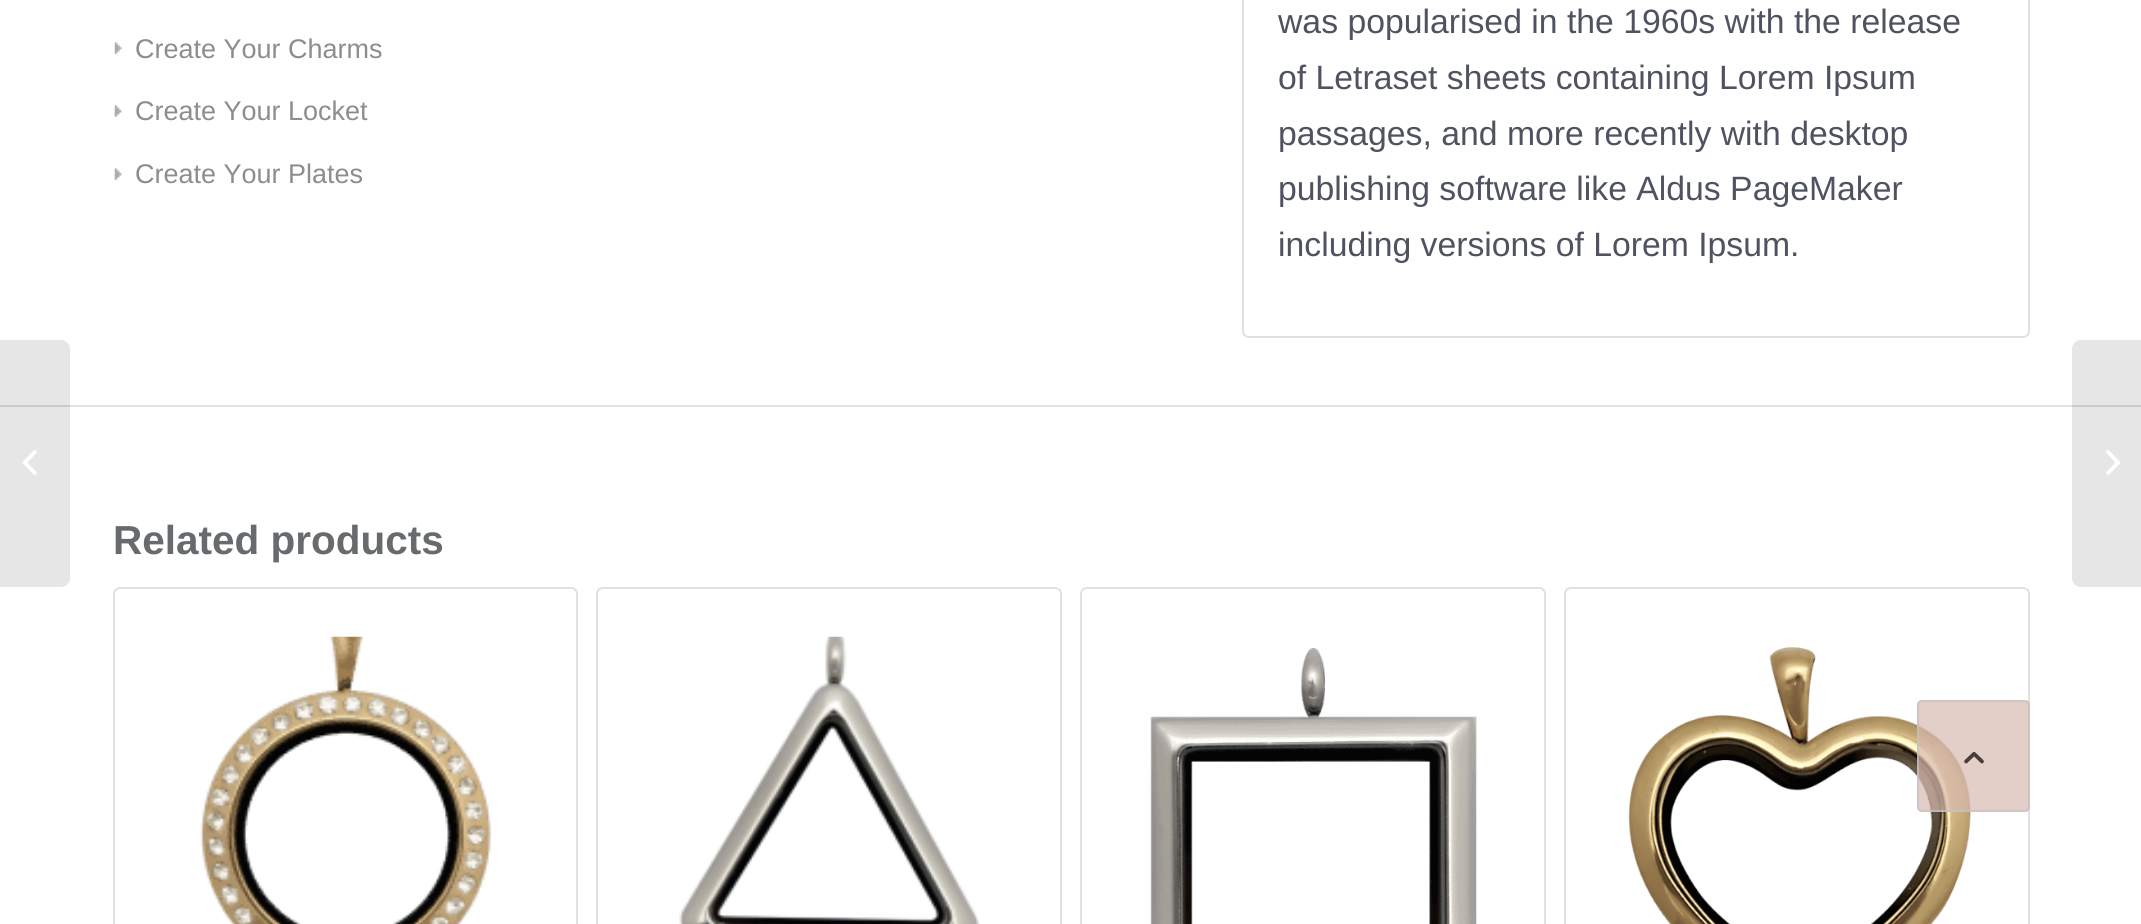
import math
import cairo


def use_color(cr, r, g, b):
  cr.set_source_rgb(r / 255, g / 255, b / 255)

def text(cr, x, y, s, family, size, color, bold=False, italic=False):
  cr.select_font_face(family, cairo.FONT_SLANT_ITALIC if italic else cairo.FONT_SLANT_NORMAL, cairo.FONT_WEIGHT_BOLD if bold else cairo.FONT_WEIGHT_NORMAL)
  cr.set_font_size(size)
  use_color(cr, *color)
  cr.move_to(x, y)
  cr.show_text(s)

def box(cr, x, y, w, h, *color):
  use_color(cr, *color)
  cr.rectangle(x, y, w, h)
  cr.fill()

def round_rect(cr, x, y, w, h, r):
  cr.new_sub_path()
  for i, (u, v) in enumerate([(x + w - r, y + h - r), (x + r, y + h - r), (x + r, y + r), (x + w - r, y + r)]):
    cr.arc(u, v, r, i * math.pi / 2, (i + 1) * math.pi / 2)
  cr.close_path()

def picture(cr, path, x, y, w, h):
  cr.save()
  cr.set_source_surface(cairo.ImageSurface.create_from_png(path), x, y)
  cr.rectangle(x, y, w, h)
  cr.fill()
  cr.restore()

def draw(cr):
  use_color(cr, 255, 255, 255)
  cr.paint()
  box(cr, 0, 405, 2141, 2, 225, 225, 225)
  cr.set_source_rgba(0, 0, 0, 0.1)
  cr.new_path()
  cr.move_to(0, 340)
  cr.line_to(61, 340)
  cr.curve_to(66, 340, 70, 344, 70, 349)
  cr.line_to(70, 578)
  cr.curve_to(70, 583, 66, 587, 61, 587)
  cr.line_to(0, 587)
  cr.close_path()
  cr.fill()
  picture(cr, "img_01.png", 22, 450, 15, 25)
  picture(cr, "img_02.png", 114, 42, 8, 12)
  picture(cr, "img_02.png", 114, 105, 8, 12)
  picture(cr, "img_02.png", 114, 168, 8, 12)
  cr.new_path()
  cr.move_to(1243, -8)
  cr.line_to(2029, -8)
  cr.line_to(2029, 331)
  cr.curve_to(2029, 334.5, 2026.5, 337, 2023, 337)
  cr.line_to(1249, 337)
  cr.curve_to(1245.5, 337, 1243, 334.5, 1243, 331)
  cr.close_path()
  use_color(cr, 225, 225, 225)
  cr.stroke()
  round_rect(cr, 114, 588, 463, 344, 6)
  cr.stroke()
  picture(cr, "img_03.png", 200, 636, 292, 288)
  round_rect(cr, 597, 588, 464, 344, 6)
  cr.stroke()
  picture(cr, "img_04.png", 679, 636, 301, 288)
  round_rect(cr, 1081, 588, 464, 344, 6)
  cr.stroke()
  picture(cr, "img_05.png", 1150, 648, 327, 276)
  round_rect(cr, 1565, 588, 464, 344, 6)
  cr.stroke()
  picture(cr, "img_06.png", 1628, 647, 343, 277)
  cr.set_source_rgba(0, 0, 0, 0.1)
  cr.new_path()
  cr.move_to(2081, 340)
  cr.line_to(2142, 340)
  cr.line_to(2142, 587)
  cr.line_to(2081, 587)
  cr.curve_to(2076, 587, 2072, 583, 2072, 578)
  cr.line_to(2072, 349)
  cr.curve_to(2072, 344, 2076, 340, 2081, 340)
  cr.close_path()
  cr.fill()
  picture(cr, "img_07.png", 2106, 450, 15, 25)
  cr.set_source_rgba(0.847, 0.729, 0.694, 0.7)
  round_rect(cr, 1917, 700, 113, 112, 5)
  cr.fill()
  round_rect(cr, 1918, 701, 111, 110, 4)
  cr.set_source_rgba(0.761, 0.761, 0.761, 0.7)
  cr.stroke()
  picture(cr, "img_08.png", 1964, 752, 20, 12)
  text(cr, 135, 58, "Create Your Charms", "Liberation Sans", 27, (141, 141, 141))
  text(cr, 135, 120, "Create Your Locket", "Liberation Sans", 27, (141, 141, 141))
  text(cr, 135, 183, "Create Your Plates", "Liberation Sans", 27, (141, 141, 141))
  text(cr, 1278, 33, "was popularised in the 1960s with the release", "Liberation Sans", 33.75, (79, 83, 96))
  text(cr, 1278, 89, "of Letraset sheets containing Lorem Ipsum", "Liberation Sans", 33.75, (79, 83, 96))
  text(cr, 1278, 145, "passages, and more recently with desktop", "Liberation Sans", 33.75, (79, 83, 96))
  text(cr, 1278, 200, "publishing software like Aldus PageMaker", "Liberation Sans", 33.75, (79, 83, 96))
  text(cr, 1278, 256, "including versions of Lorem Ipsum.", "Liberation Sans", 33.75, (79, 83, 96))
  text(cr, 113, 554, "Related products", "Liberation Sans", 40.5, (103, 107, 109), bold=True)


surface = cairo.ImageSurface(cairo.FORMAT_RGB24, 2141, 924)
cr = cairo.Context(surface)
options = cairo.FontOptions()
options.set_hint_metrics(cairo.HINT_METRICS_OFF)
options.set_hint_style(cairo.HINT_STYLE_NONE)
cr.set_font_options(options)
cr.set_miter_limit(4)
draw(cr)
surface.write_to_png("out.png")
